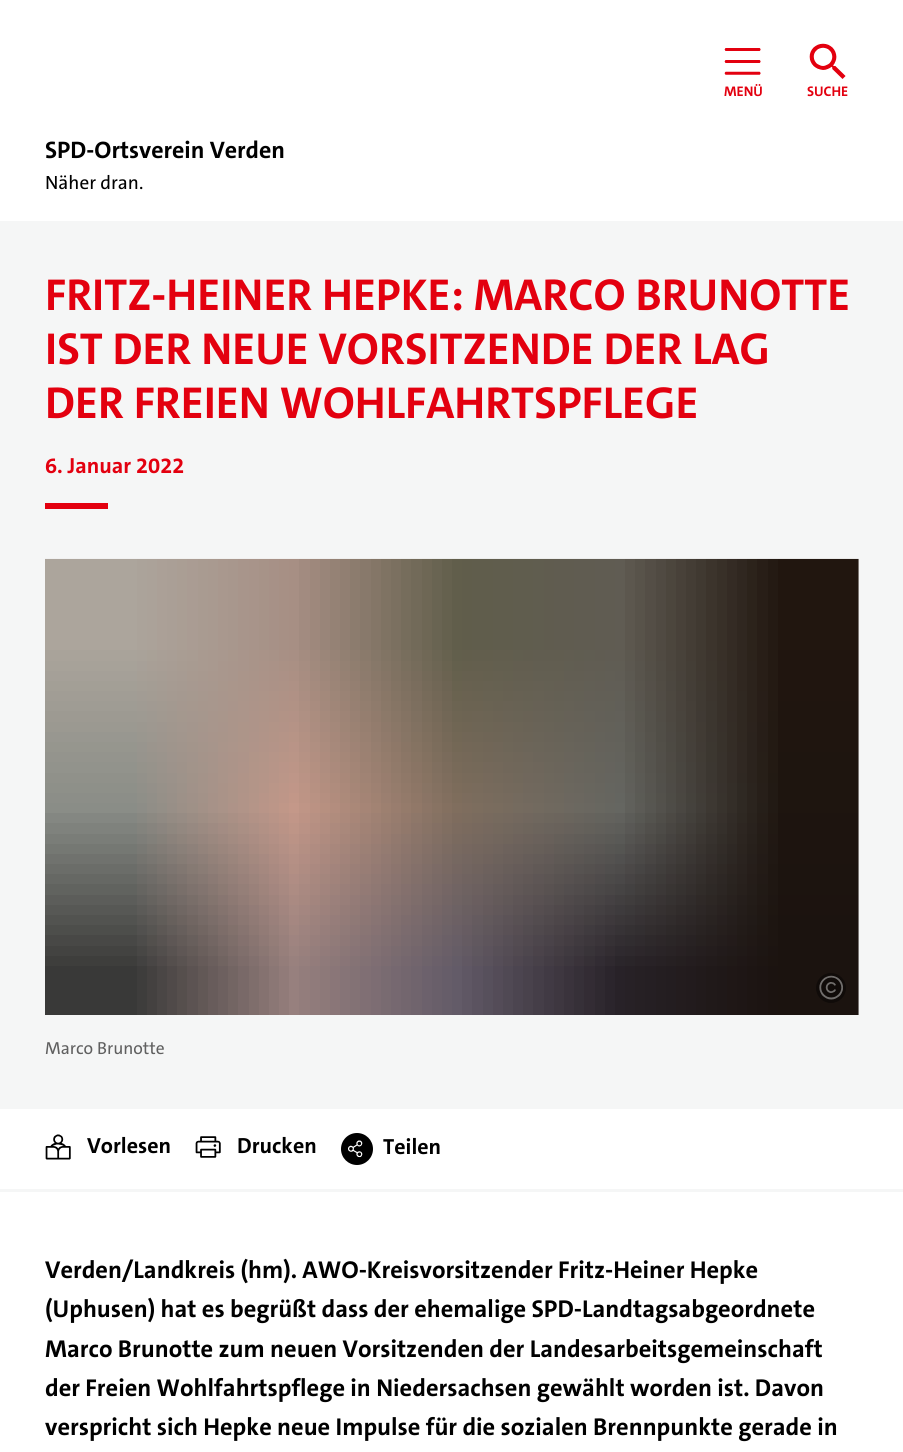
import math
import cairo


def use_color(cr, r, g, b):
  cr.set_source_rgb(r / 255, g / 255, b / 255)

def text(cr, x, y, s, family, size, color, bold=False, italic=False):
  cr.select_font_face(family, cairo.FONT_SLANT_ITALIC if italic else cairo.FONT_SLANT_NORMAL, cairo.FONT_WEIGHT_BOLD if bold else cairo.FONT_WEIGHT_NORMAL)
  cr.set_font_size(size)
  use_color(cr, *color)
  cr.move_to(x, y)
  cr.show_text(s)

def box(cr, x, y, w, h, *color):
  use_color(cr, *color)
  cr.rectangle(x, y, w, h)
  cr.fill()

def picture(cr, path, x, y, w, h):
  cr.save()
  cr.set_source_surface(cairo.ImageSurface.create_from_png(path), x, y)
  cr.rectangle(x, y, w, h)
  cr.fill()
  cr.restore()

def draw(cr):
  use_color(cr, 255, 255, 255)
  cr.paint()
  picture(cr, "img_01.png", 724, 48, 37, 27)
  picture(cr, "img_02.png", 809, 43, 37, 36)
  box(cr, 0, 221, 903, 888, 245, 246, 246)
  box(cr, 45, 503, 63, 6, 227, 0, 15)
  picture(cr, "img_03.png", 45, 558, 814, 457)
  use_color(cr, 16, 11, 9)
  cr.arc(831, 988, 15, 0, 2 * math.pi)
  cr.fill()
  picture(cr, "img_04.png", 819, 975, 24, 25)
  box(cr, 0, 1189, 903, 3, 245, 246, 246)
  picture(cr, "img_05.png", 45, 1134, 26, 26)
  picture(cr, "img_06.png", 195, 1136, 26, 22)
  use_color(cr, 0, 0, 0)
  cr.arc(357, 1149, 16, 0, 2 * math.pi)
  cr.fill()
  picture(cr, "img_07.png", 348, 1140, 15, 18)
  text(cr, 724, 96, "MENÜ", "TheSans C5", 14, (227, 0, 15), bold=True)
  text(cr, 807, 96, "SUCHE", "TheSans C5", 14, (227, 0, 15), bold=True)
  text(cr, 45, 158, "SPD-Ortsverein Verden", "TheSans C5", 24, (0, 0, 0), bold=True)
  text(cr, 45, 189, "Näher dran.", "TheSans C5 Medium", 19.25, (0, 0, 0))
  text(cr, 45, 310, "FRITZ-HEINER HEPKE: MARCO BRUNOTTE", "TheSans C5", 45, (227, 0, 15), bold=True)
  text(cr, 45, 364, "IST DER NEUE VORSITZENDE DER LAG", "TheSans C5", 45, (227, 0, 15), bold=True)
  text(cr, 45, 418, "DER FREIEN WOHLFAHRTSPFLEGE", "TheSans C5", 45, (227, 0, 15), bold=True)
  text(cr, 45, 473, "6. Januar 2022", "TheSans C5", 22, (227, 0, 15), bold=True)
  text(cr, 45, 1054, "Marco Brunotte", "TheSans C5 Medium", 17.5, (96, 96, 96))
  text(cr, 87, 1153, "Vorlesen", "TheSans C5", 22, (0, 0, 0), bold=True)
  text(cr, 237, 1153, "Drucken", "TheSans C5", 22, (0, 0, 0), bold=True)
  text(cr, 383, 1154, "Teilen", "TheSans C5", 22, (0, 0, 0), bold=True)
  text(cr, 45, 1278, "Verden/Landkreis (hm). AWO-Kreisvorsitzender Fritz-Heiner Hepke", "TheSans C5", 24.5, (0, 0, 0), bold=True)
  text(cr, 45, 1317, "(Uphusen) hat es begrüßt dass der ehemalige SPD-Landtagsabgeordnete", "TheSans C5", 24.5, (0, 0, 0), bold=True)
  text(cr, 45, 1357, "Marco Brunotte zum neuen Vorsitzenden der Landesarbeitsgemeinschaft", "TheSans C5", 24.5, (0, 0, 0), bold=True)
  text(cr, 45, 1396, "der Freien Wohlfahrtspflege in Niedersachsen gewählt worden ist. Davon", "TheSans C5", 24.5, (0, 0, 0), bold=True)
  text(cr, 45, 1435, "verspricht sich Hepke neue Impulse für die sozialen Brennpunkte gerade in", "TheSans C5", 24.5, (0, 0, 0), bold=True)


surface = cairo.ImageSurface(cairo.FORMAT_RGB24, 903, 1452)
cr = cairo.Context(surface)
options = cairo.FontOptions()
options.set_hint_metrics(cairo.HINT_METRICS_OFF)
options.set_hint_style(cairo.HINT_STYLE_NONE)
cr.set_font_options(options)
cr.set_miter_limit(4)
draw(cr)
surface.write_to_png("out.png")
